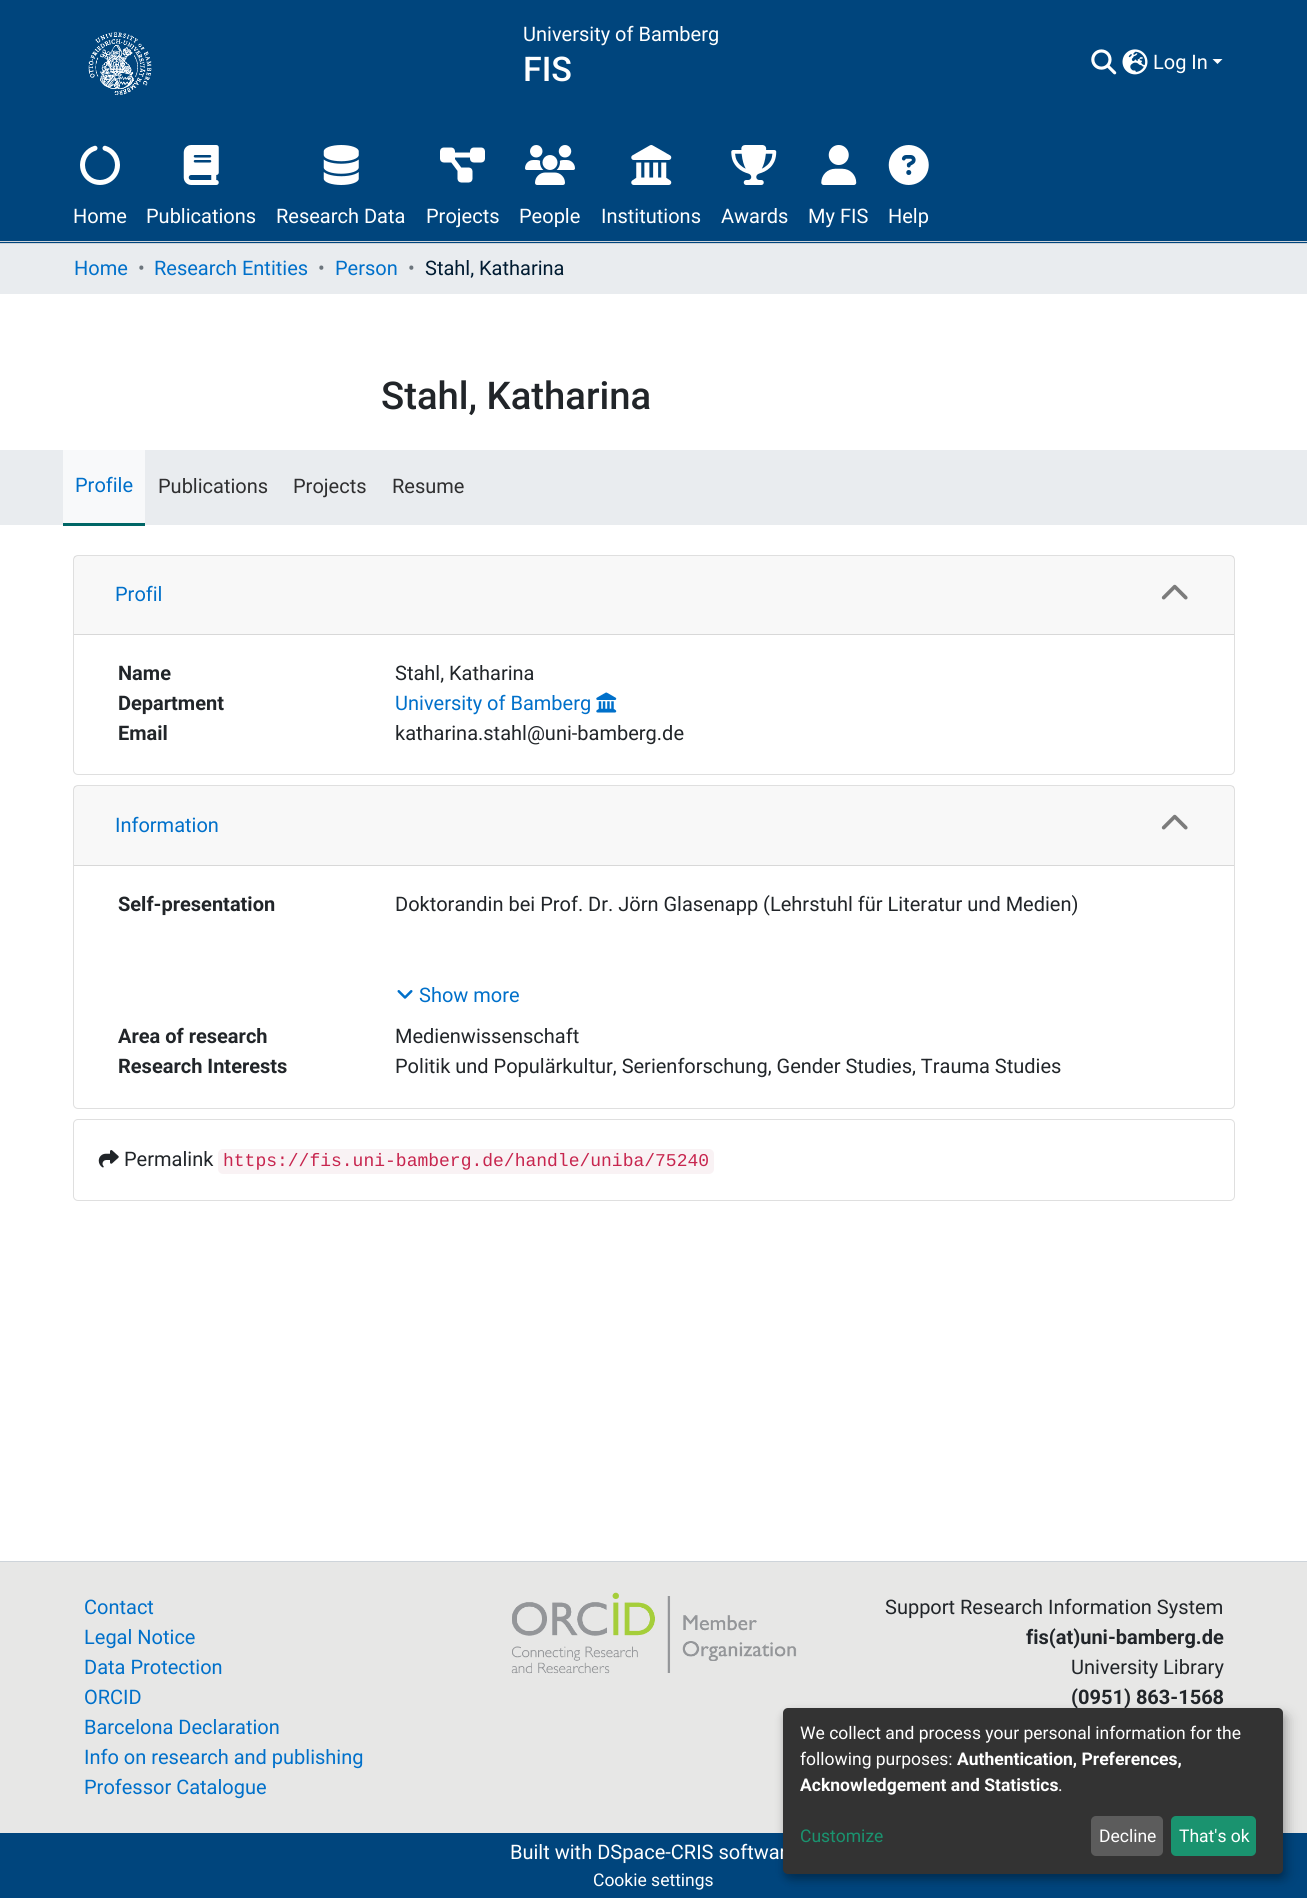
import math
import cairo


def use_color(cr, r, g, b):
  cr.set_source_rgb(r / 255, g / 255, b / 255)

def text(cr, x, y, s, family, size, color, bold=False, italic=False):
  cr.select_font_face(family, cairo.FONT_SLANT_ITALIC if italic else cairo.FONT_SLANT_NORMAL, cairo.FONT_WEIGHT_BOLD if bold else cairo.FONT_WEIGHT_NORMAL)
  cr.set_font_size(size)
  use_color(cr, *color)
  cr.move_to(x, y)
  cr.show_text(s)

def box(cr, x, y, w, h, *color):
  use_color(cr, *color)
  cr.rectangle(x, y, w, h)
  cr.fill()

def round_rect(cr, x, y, w, h, r):
  cr.new_sub_path()
  for i, (u, v) in enumerate([(x + w - r, y + h - r), (x + r, y + h - r), (x + r, y + r), (x + w - r, y + r)]):
    cr.arc(u, v, r, i * math.pi / 2, (i + 1) * math.pi / 2)
  cr.close_path()

def shadow(cr, x, y, w, h, r, blur, alpha):
  cr.push_group_with_content(cairo.CONTENT_ALPHA)
  cr.set_operator(cairo.OPERATOR_SOURCE)
  for i in range(15, -16, -2):
    e = blur * i / 6
    if min(w, h) + 2 * e > 0:
      cr.set_source_rgba(0, 0, 0, alpha * math.erfc((i - 1) / 8.5) / 2)
      round_rect(cr, x - e, y - e, w + 2 * e, h + 2 * e, max(0, min(r + e + blur * .6, min(w, h) / 2 + e)))
      cr.fill()
  cr.mask(cr.pop_group())

def picture(cr, path, x, y, w, h):
  cr.save()
  cr.set_source_surface(cairo.ImageSurface.create_from_png(path), x, y)
  cr.rectangle(x, y, w, h)
  cr.fill()
  cr.restore()

def draw(cr):
  use_color(cr, 255, 255, 255)
  cr.paint()
  box(cr, 0, 243, 1307, 1, 206, 212, 218)
  box(cr, 0, 0, 1307, 243, 0, 69, 125)
  picture(cr, "img_01.png", 88, 32, 64, 63)
  picture(cr, "img_02.png", 1091, 49, 26, 26)
  picture(cr, "img_03.png", 1122, 49, 26, 26)
  use_color(cr, 255, 255, 255)
  cr.new_path()
  cr.move_to(1212.5, 59)
  cr.line_to(1222.5, 59)
  cr.line_to(1217.5, 64)
  cr.close_path()
  cr.fill()
  box(cr, 0, 241, 1307, 1, 206, 212, 218)
  picture(cr, "img_04.png", 80, 145, 40, 40)
  picture(cr, "img_05.png", 183, 145, 36, 40)
  picture(cr, "img_06.png", 323, 145, 36, 40)
  picture(cr, "img_07.png", 440, 147, 45, 36)
  picture(cr, "img_08.png", 525, 145, 50, 40)
  picture(cr, "img_09.png", 631, 145, 41, 40)
  picture(cr, "img_10.png", 731, 145, 46, 40)
  picture(cr, "img_11.png", 821, 145, 36, 40)
  picture(cr, "img_12.png", 888, 145, 41, 40)
  box(cr, 0, 244, 1307, 50, 233, 236, 239)
  box(cr, 0, 450, 1307, 75, 233, 236, 239)
  box(cr, 63, 523, 82, 3, 0, 102, 102)
  box(cr, 63, 450, 82, 73, 248, 249, 250)
  round_rect(cr, 73.5, 555.5, 1161, 219, 4.5)
  use_color(cr, 223, 223, 223)
  cr.set_line_width(1)
  cr.stroke()
  cr.set_source_rgba(0, 0, 0, 0.03)
  cr.rectangle(74, 556, 1160, 78)
  cr.fill()
  box(cr, 74, 634, 1160, 1, 216, 216, 216)
  picture(cr, "img_13.png", 1161, 584, 27, 16)
  picture(cr, "img_14.png", 596, 692, 21, 21)
  round_rect(cr, 73.5, 785.5, 1161, 323, 4.5)
  use_color(cr, 223, 223, 223)
  cr.stroke()
  cr.set_source_rgba(0, 0, 0, 0.03)
  cr.rectangle(74, 786, 1160, 79)
  cr.fill()
  box(cr, 74, 865, 1160, 1, 216, 216, 216)
  picture(cr, "img_13.png", 1161, 814, 27, 16)
  picture(cr, "img_15.png", 397, 990, 16, 9)
  round_rect(cr, 73.5, 1119.5, 1161, 81, 4.5)
  use_color(cr, 223, 223, 223)
  cr.stroke()
  picture(cr, "img_16.png", 98, 1150, 21, 18)
  use_color(cr, 249, 242, 244)
  round_rect(cr, 218, 1149, 496, 25, 5)
  cr.fill()
  box(cr, 0, 1562, 1307, 271, 231, 231, 230)
  box(cr, 0, 1561, 1307, 1, 206, 212, 218)
  picture(cr, "img_17.png", 511, 1592, 286, 82)
  box(cr, 0, 1833, 1307, 65, 0, 69, 125)
  use_color(cr, 0, 0, 0)
  shadow(cr, 789, 1714, 500, 166, 5, 6, 0.19)
  shadow(cr, 783, 1713, 500, 166, 5, 4, 0.2)
  text(cr, 523, 41, "University of Bamberg", "Roboto", 20, (255, 255, 255))
  text(cr, 523, 81, "FIS", "Roboto Medium", 34, (255, 255, 255))
  text(cr, 1153, 69, "Log In", "Roboto", 20, (255, 255, 255))
  text(cr, 73, 223, "Home", "Roboto", 20, (255, 255, 255))
  text(cr, 146, 223, "Publications", "Roboto", 20, (255, 255, 255))
  text(cr, 276, 223, "Research Data", "Roboto", 20, (255, 255, 255))
  text(cr, 426, 223, "Projects", "Roboto", 20, (255, 255, 255))
  text(cr, 519, 223, "People", "Roboto", 20, (255, 255, 255))
  text(cr, 601, 223, "Institutions", "Roboto", 20, (255, 255, 255))
  text(cr, 721, 223, "Awards", "Roboto", 20, (255, 255, 255))
  text(cr, 808, 223, "My FIS", "Roboto", 20, (255, 255, 255))
  text(cr, 888, 223, "Help", "Roboto", 20, (255, 255, 255))
  text(cr, 74, 275, "Home", "Roboto", 20, (0, 112, 202))
  text(cr, 138, 275, "•", "Roboto", 20, (108, 117, 125))
  text(cr, 154, 275, "Research Entities", "Roboto", 20, (0, 112, 202))
  text(cr, 318, 275, "•", "Roboto", 20, (108, 117, 125))
  text(cr, 335, 275, "Person", "Roboto", 20, (0, 112, 202))
  text(cr, 408, 275, "•", "Roboto", 20, (108, 117, 125))
  text(cr, 425, 275, "Stahl, Katharina", "Roboto", 20, (0, 27, 49))
  text(cr, 381, 409, "Stahl, Katharina", "Roboto Medium", 38.25, (33, 37, 41))
  text(cr, 75, 492, "Profile", "Roboto", 20, (0, 112, 202))
  text(cr, 158, 493, "Publications", "Roboto", 20, (47, 47, 48))
  text(cr, 293, 493, "Projects", "Roboto", 20, (47, 47, 48))
  text(cr, 392, 493, "Resume", "Roboto", 20, (47, 47, 48))
  text(cr, 115, 601, "Profil", "Roboto", 20, (0, 112, 202))
  text(cr, 118, 680, "Name", "Roboto", 20, (33, 37, 41), bold=True)
  text(cr, 395, 680, "Stahl, Katharina", "Roboto", 20, (33, 37, 41))
  text(cr, 118, 710, "Department", "Roboto", 20, (33, 37, 41), bold=True)
  text(cr, 395, 710, "University of Bamberg", "Roboto", 20, (0, 112, 202))
  text(cr, 118, 740, "Email", "Roboto", 20, (33, 37, 41), bold=True)
  text(cr, 395, 740, "katharina.stahl@uni-bamberg.de", "Roboto", 20, (33, 37, 41))
  text(cr, 115, 832, "Information", "Roboto", 20, (0, 112, 202))
  text(cr, 118, 911, "Self-presentation", "Roboto", 20, (33, 37, 41), bold=True)
  text(cr, 395, 911, "Doktorandin bei Prof. Dr. Jörn Glasenapp (Lehrstuhl für Literatur und Medien)", "Roboto", 20, (33, 37, 41))
  text(cr, 419, 1002, "Show more", "Roboto", 20, (0, 112, 202))
  text(cr, 118, 1043, "Area of research", "Roboto", 20, (33, 37, 41), bold=True)
  text(cr, 395, 1043, "Medienwissenschaft", "Roboto", 20, (33, 37, 41))
  text(cr, 118, 1073, "Research Interests", "Roboto", 20, (33, 37, 41), bold=True)
  text(cr, 395, 1073, "Politik und Populärkultur, Serienforschung, Gender Studies, Trauma Studies", "Roboto", 20, (33, 37, 41))
  text(cr, 124, 1166, "Permalink", "Roboto", 20, (33, 37, 41))
  text(cr, 223, 1166, "https://fis.uni-bamberg.de/handle/uniba/75240", "Liberation Mono", 18, (199, 37, 78))
  text(cr, 84, 1614, "Contact", "Roboto", 20, (0, 112, 202))
  text(cr, 84, 1644, "Legal Notice", "Roboto", 20, (0, 112, 202))
  text(cr, 84, 1674, "Data Protection", "Roboto", 20, (0, 112, 202))
  text(cr, 84, 1704, "ORCID", "Roboto", 20, (0, 112, 202))
  text(cr, 84, 1734, "Barcelona Declaration", "Roboto", 20, (0, 112, 202))
  text(cr, 84, 1764, "Info on research and publishing", "Roboto", 20, (0, 112, 202))
  text(cr, 84, 1794, "Professor Catalogue", "Roboto", 20, (0, 112, 202))
  text(cr, 885, 1614, "Support Research Information System", "Roboto", 20, (33, 37, 41))
  text(cr, 1026, 1644, "fis(at)uni-bamberg.de", "Roboto", 20, (33, 37, 41), bold=True)
  text(cr, 1071, 1674, "University Library", "Roboto", 20, (33, 37, 41))
  text(cr, 1071, 1704, "(0951) 863-1568", "Roboto", 20, (33, 37, 41), bold=True)
  text(cr, 510, 1859, "Built with DSpace-CRIS softwar", "Roboto", 20, (255, 255, 255))
  text(cr, 593, 1886, "Cookie settings", "Roboto", 17.5, (255, 255, 255))
  use_color(cr, 51, 51, 51)
  round_rect(cr, 783, 1708, 500, 166, 5)
  cr.fill()
  text(cr, 800, 1739, "We collect and process your personal information for the", "Roboto", 17.5, (255, 255, 255))
  text(cr, 800, 1765, "following purposes:", "Roboto", 17.5, (255, 255, 255))
  text(cr, 957, 1765, "Authentication, Preferences,", "Roboto", 17.5, (255, 255, 255), bold=True)
  text(cr, 800, 1791, "Acknowledgement and Statistics", "Roboto", 17.5, (255, 255, 255), bold=True)
  text(cr, 1058, 1791, ".", "Roboto", 17.5, (255, 255, 255))
  text(cr, 800, 1842, "Customize", "Roboto", 17.5, (26, 147, 111))
  use_color(cr, 92, 92, 92)
  round_rect(cr, 1091, 1816, 72, 40, 5)
  cr.fill()
  text(cr, 1099, 1842, "Decline", "Roboto", 17.5, (255, 255, 255))
  use_color(cr, 26, 147, 111)
  round_rect(cr, 1171, 1816, 85, 40, 5)
  cr.fill()
  text(cr, 1179, 1842, "That's ok", "Roboto", 17.5, (255, 255, 255))


surface = cairo.ImageSurface(cairo.FORMAT_RGB24, 1307, 1898)
cr = cairo.Context(surface)
options = cairo.FontOptions()
options.set_hint_metrics(cairo.HINT_METRICS_OFF)
options.set_hint_style(cairo.HINT_STYLE_NONE)
cr.set_font_options(options)
cr.set_miter_limit(4)
draw(cr)
surface.write_to_png("out.png")
